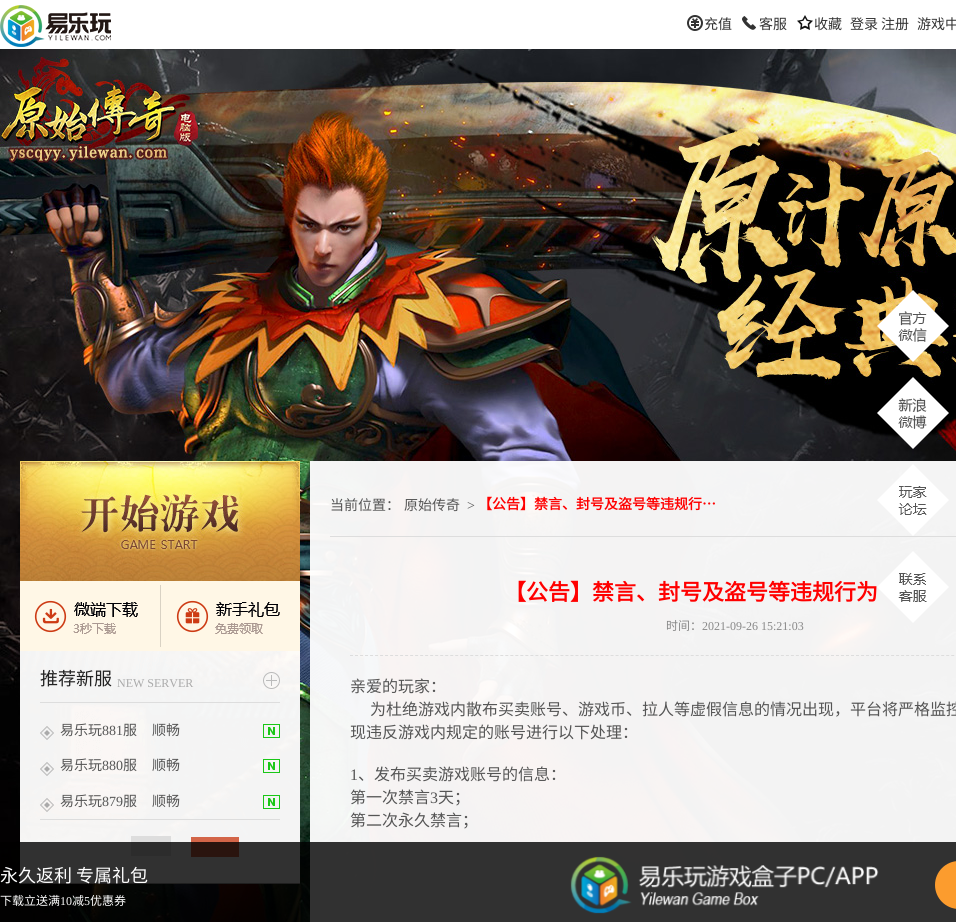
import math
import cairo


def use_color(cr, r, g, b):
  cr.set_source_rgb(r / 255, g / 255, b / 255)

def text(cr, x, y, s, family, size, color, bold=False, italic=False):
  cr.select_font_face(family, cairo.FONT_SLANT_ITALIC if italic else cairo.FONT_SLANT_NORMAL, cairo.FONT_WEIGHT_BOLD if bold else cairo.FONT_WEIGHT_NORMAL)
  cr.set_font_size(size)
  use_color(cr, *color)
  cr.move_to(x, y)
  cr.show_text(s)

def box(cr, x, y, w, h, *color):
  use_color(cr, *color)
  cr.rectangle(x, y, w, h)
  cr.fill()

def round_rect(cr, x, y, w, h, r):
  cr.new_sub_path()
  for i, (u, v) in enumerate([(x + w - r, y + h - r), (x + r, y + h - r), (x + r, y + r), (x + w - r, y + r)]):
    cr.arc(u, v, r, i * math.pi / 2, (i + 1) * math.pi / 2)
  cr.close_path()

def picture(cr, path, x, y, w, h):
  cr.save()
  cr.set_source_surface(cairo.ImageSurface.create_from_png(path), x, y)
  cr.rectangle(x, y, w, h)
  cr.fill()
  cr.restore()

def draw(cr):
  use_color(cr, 255, 255, 255)
  cr.paint()
  picture(cr, "img_01.png", 0, 5, 111, 42)
  picture(cr, "img_02.png", 687, 15, 16, 16)
  picture(cr, "img_03.png", 742, 16, 14, 14)
  picture(cr, "img_04.png", 797, 15, 16, 15)
  picture(cr, "img_05.png", 0, 49, 956, 873)
  picture(cr, "img_06.png", 877, 290, 72, 72)
  picture(cr, "img_07.png", 877, 377, 72, 72)
  cr.set_source_rgba(1, 1, 1, 0.95)
  cr.rectangle(310, 461, 646, 461)
  cr.fill()
  picture(cr, "img_08.png", 877, 464, 72, 72)
  picture(cr, "img_09.png", 877, 551, 72, 72)
  picture(cr, "img_10.png", 20, 461, 280, 120)
  picture(cr, "img_11.png", 20, 581, 140, 70)
  picture(cr, "img_12.png", 160, 581, 140, 70)
  picture(cr, "img_13.png", 20, 651, 280, 233)
  picture(cr, "img_14.png", 263, 672, 17, 17)
  picture(cr, "img_15.png", 40, 726, 14, 14)
  picture(cr, "img_16.png", 263, 724, 17, 14)
  picture(cr, "img_17.png", 40, 762, 14, 14)
  picture(cr, "img_18.png", 263, 759, 17, 14)
  picture(cr, "img_19.png", 40, 798, 14, 14)
  picture(cr, "img_20.png", 263, 795, 17, 14)
  box(cr, 191, 837, 48, 20, 211, 101, 72)
  box(cr, 330, 536, 626, 1, 221, 221, 221)
  cr.new_path()
  cr.move_to(350, 655.5)
  cr.line_to(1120, 655.5)
  cr.set_line_width(1)
  cr.set_dash([3, 2.01])
  cr.stroke()
  cr.set_source_rgba(0, 0, 0, 0.8)
  cr.rectangle(0, 842, 956, 80)
  cr.fill()
  picture(cr, "img_21.png", 570, 856, 309, 58)
  use_color(cr, 252, 156, 46)
  round_rect(cr, 935, 861, 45, 48, 24)
  cr.fill()
  text(cr, 704, 29, "充值", "Noto Sans CJK SC", 14, (51, 51, 51))
  text(cr, 759, 29, "客服", "Noto Sans CJK SC", 14, (51, 51, 51))
  text(cr, 814, 29, "收藏", "Noto Sans CJK SC", 14, (51, 51, 51))
  text(cr, 850, 29, "登录", "Noto Sans CJK SC", 14, (51, 51, 51))
  text(cr, 881, 29, "注册", "Noto Sans CJK SC", 14, (51, 51, 51))
  text(cr, 917, 29, "游戏中", "Noto Sans CJK SC", 14, (51, 51, 51))
  text(cr, 40, 685, "推荐新服", "Noto Sans CJK SC", 18, (34, 34, 34))
  text(cr, 117, 687, "NEW SERVER", "Liberation Serif", 12, (170, 170, 170))
  text(cr, 60, 735, "易乐玩", "Noto Sans CJK SC", 14, (85, 85, 85))
  text(cr, 102, 735, "881", "Liberation Serif", 14, (85, 85, 85))
  text(cr, 123, 735, "服", "Noto Sans CJK SC", 14, (85, 85, 85))
  text(cr, 152, 735, "顺畅", "Noto Sans CJK SC", 14, (85, 85, 85))
  text(cr, 60, 770, "易乐玩", "Noto Sans CJK SC", 14, (85, 85, 85))
  text(cr, 102, 770, "880", "Liberation Serif", 14, (85, 85, 85))
  text(cr, 123, 770, "服", "Noto Sans CJK SC", 14, (85, 85, 85))
  text(cr, 152, 770, "顺畅", "Noto Sans CJK SC", 14, (85, 85, 85))
  text(cr, 60, 806, "易乐玩", "Noto Sans CJK SC", 14, (85, 85, 85))
  text(cr, 102, 806, "879", "Liberation Serif", 14, (85, 85, 85))
  text(cr, 123, 806, "服", "Noto Sans CJK SC", 14, (85, 85, 85))
  text(cr, 152, 806, "顺畅", "Noto Sans CJK SC", 14, (85, 85, 85))
  text(cr, 330, 510, "当前位置：", "Noto Sans CJK SC", 14, (85, 85, 85))
  text(cr, 404, 510, "原始传奇", "Noto Sans CJK SC", 14, (85, 85, 85))
  text(cr, 467, 510, ">", "Liberation Serif", 14, (85, 85, 85))
  text(cr, 478, 509, "【公告】禁言、封号及盗号等违规行…", "Noto Sans CJK SC", 14, (255, 0, 0), bold=True)
  text(cr, 504, 600, "【公告】禁言、封号及盗号等违规行为", "Noto Sans CJK SC", 22, (255, 0, 0), bold=True)
  text(cr, 666, 630, "时间：", "Noto Sans CJK SC", 12, (136, 136, 136))
  text(cr, 702, 630, "2021-09-26 15:21:03", "Liberation Serif", 12, (136, 136, 136))
  text(cr, 350, 692, "亲爱的玩家：", "Noto Sans CJK SC", 16, (85, 85, 85))
  text(cr, 370, 715, "为杜绝游戏内散布买卖账号、游戏币、拉人等虚假信息的情况出现，平台将严格监控", "Noto Sans CJK SC", 16, (85, 85, 85))
  text(cr, 350, 738, "现违反游戏内规定的账号进行以下处理：", "Noto Sans CJK SC", 16, (85, 85, 85))
  text(cr, 350, 780, "1", "Liberation Serif", 16, (85, 85, 85))
  text(cr, 358, 780, "、发布买卖游戏账号的信息：", "Noto Sans CJK SC", 16, (85, 85, 85))
  text(cr, 350, 803, "第一次禁言", "Noto Sans CJK SC", 16, (85, 85, 85))
  text(cr, 430, 803, "3", "Liberation Serif", 16, (85, 85, 85))
  text(cr, 438, 803, "天；", "Noto Sans CJK SC", 16, (85, 85, 85))
  text(cr, 350, 826, "第二次永久禁言；", "Noto Sans CJK SC", 16, (85, 85, 85))
  text(cr, 0, 882, "永久返利 专属礼包", "Noto Sans CJK SC", 18, (255, 255, 255))
  text(cr, 0, 905, "下载立送满", "Noto Sans CJK SC", 12, (255, 255, 255))
  text(cr, 60, 905, "10", "Liberation Serif", 12, (255, 255, 255))
  text(cr, 72, 905, "减", "Noto Sans CJK SC", 12, (255, 255, 255))
  text(cr, 84, 905, "5", "Liberation Serif", 12, (255, 255, 255))
  text(cr, 90, 905, "优惠券", "Noto Sans CJK SC", 12, (255, 255, 255))


surface = cairo.ImageSurface(cairo.FORMAT_RGB24, 956, 922)
cr = cairo.Context(surface)
options = cairo.FontOptions()
options.set_hint_metrics(cairo.HINT_METRICS_OFF)
options.set_hint_style(cairo.HINT_STYLE_NONE)
cr.set_font_options(options)
cr.set_miter_limit(4)
draw(cr)
surface.write_to_png("out.png")
